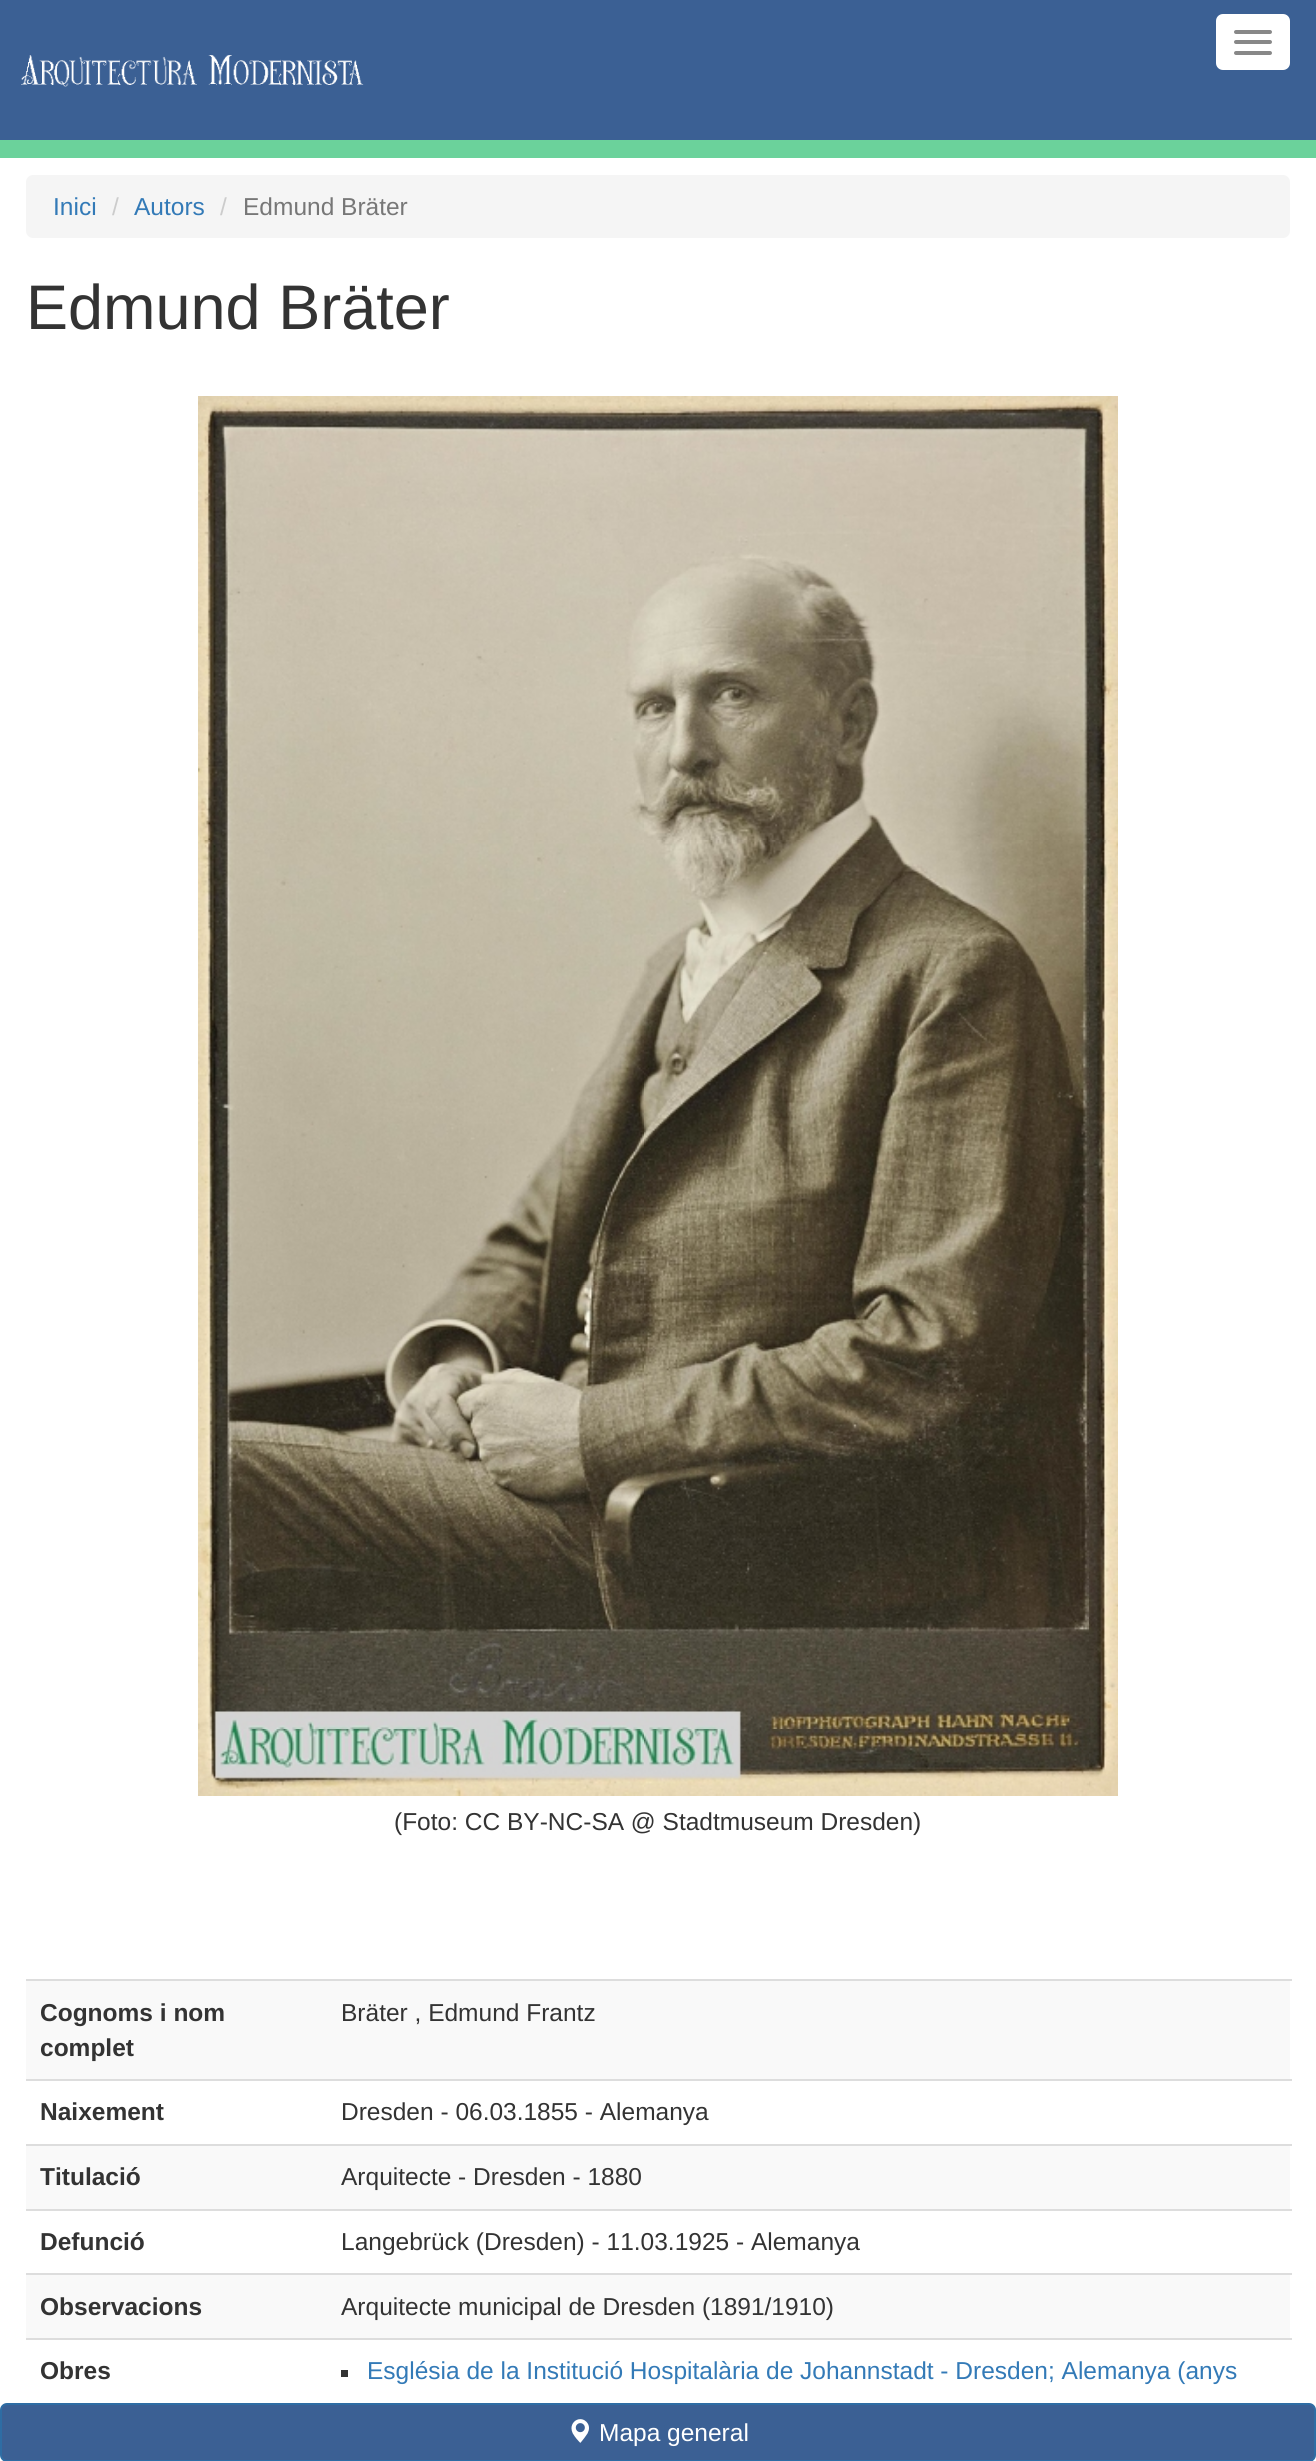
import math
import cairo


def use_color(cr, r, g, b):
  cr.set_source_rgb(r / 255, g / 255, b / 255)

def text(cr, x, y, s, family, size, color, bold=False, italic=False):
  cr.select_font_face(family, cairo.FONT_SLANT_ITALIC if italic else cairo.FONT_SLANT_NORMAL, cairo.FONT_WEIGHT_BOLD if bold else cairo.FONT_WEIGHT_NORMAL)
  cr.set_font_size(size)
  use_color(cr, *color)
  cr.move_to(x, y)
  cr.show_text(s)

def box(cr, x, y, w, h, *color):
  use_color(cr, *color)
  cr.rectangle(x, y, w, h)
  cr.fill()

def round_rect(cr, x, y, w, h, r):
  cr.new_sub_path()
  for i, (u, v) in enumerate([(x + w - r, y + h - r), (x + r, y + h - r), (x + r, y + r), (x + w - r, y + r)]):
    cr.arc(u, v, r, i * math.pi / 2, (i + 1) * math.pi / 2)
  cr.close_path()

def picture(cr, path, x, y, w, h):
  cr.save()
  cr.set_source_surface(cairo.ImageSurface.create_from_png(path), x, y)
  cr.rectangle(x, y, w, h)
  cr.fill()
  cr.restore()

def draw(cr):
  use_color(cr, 255, 255, 255)
  cr.paint()
  box(cr, 0, 0, 1316, 140, 59, 96, 148)
  box(cr, 0, 140, 1316, 18, 107, 210, 155)
  picture(cr, "img_01.png", 21, 55, 343, 32)
  use_color(cr, 255, 255, 255)
  round_rect(cr, 1216, 14, 74, 56, 7)
  cr.fill()
  use_color(cr, 136, 136, 136)
  round_rect(cr, 1234, 30, 38, 4, 2)
  cr.fill()
  round_rect(cr, 1234, 40, 38, 4, 2)
  cr.fill()
  round_rect(cr, 1234, 51, 38, 4, 2)
  cr.fill()
  use_color(cr, 245, 245, 245)
  round_rect(cr, 26, 175, 1264, 63, 7)
  cr.fill()
  picture(cr, "img_02.png", 198, 396, 920, 1400)
  box(cr, 26, 1981, 1264, 98, 249, 249, 249)
  box(cr, 26, 1979, 1266, 2, 221, 221, 221)
  box(cr, 26, 2079, 1266, 2, 221, 221, 221)
  box(cr, 26, 2146, 1264, 63, 249, 249, 249)
  box(cr, 26, 2144, 1266, 2, 221, 221, 221)
  box(cr, 26, 2209, 1266, 2, 221, 221, 221)
  box(cr, 26, 2275, 1264, 63, 249, 249, 249)
  box(cr, 26, 2273, 1266, 2, 221, 221, 221)
  box(cr, 26, 2338, 1266, 2, 221, 221, 221)
  box(cr, 341, 2370, 7, 7, 51, 51, 51)
  use_color(cr, 59, 96, 148)
  round_rect(cr, 1, 2404, 1314, 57, 6)
  cr.fill_preserve()
  use_color(cr, 46, 109, 164)
  cr.stroke()
  picture(cr, "img_03.png", 571, 2419, 18, 24)
  text(cr, 53, 215, "Inici", "Liberation Sans", 24.5, (51, 122, 183))
  text(cr, 112, 215, "/", "Liberation Sans", 24.5, (204, 204, 204))
  text(cr, 134, 215, "Autors", "Liberation Sans", 24.5, (51, 122, 183))
  text(cr, 220, 215, "/", "Liberation Sans", 24.5, (204, 204, 204))
  text(cr, 243, 215, "Edmund Bräter", "Liberation Sans", 24.5, (119, 119, 119))
  text(cr, 26, 329, "Edmund Bräter", "Liberation Sans", 63, (51, 51, 51))
  text(cr, 394, 1830, "(Foto: CC BY-NC-SA @ Stadtmuseum Dresden)", "Liberation Sans", 24.5, (51, 51, 51))
  text(cr, 40, 2021, "Cognoms i nom", "Liberation Sans", 24.5, (51, 51, 51), bold=True)
  text(cr, 40, 2056, "complet", "Liberation Sans", 24.5, (51, 51, 51), bold=True)
  text(cr, 341, 2021, "Bräter , Edmund Frantz", "Liberation Sans", 24.5, (51, 51, 51))
  text(cr, 40, 2120, "Naixement", "Liberation Sans", 24.5, (51, 51, 51), bold=True)
  text(cr, 341, 2120, "Dresden - 06.03.1855 - Alemanya", "Liberation Sans", 24.5, (51, 51, 51))
  text(cr, 40, 2185, "Titulació", "Liberation Sans", 24.5, (51, 51, 51), bold=True)
  text(cr, 341, 2185, "Arquitecte - Dresden - 1880", "Liberation Sans", 24.5, (51, 51, 51))
  text(cr, 40, 2250, "Defunció", "Liberation Sans", 24.5, (51, 51, 51), bold=True)
  text(cr, 341, 2250, "Langebrück (Dresden) - 11.03.1925 - Alemanya", "Liberation Sans", 24.5, (51, 51, 51))
  text(cr, 40, 2315, "Observacions", "Liberation Sans", 24.5, (51, 51, 51), bold=True)
  text(cr, 341, 2315, "Arquitecte municipal de Dresden (1891/1910)", "Liberation Sans", 24.5, (51, 51, 51))
  text(cr, 40, 2379, "Obres", "Liberation Sans", 24.5, (51, 51, 51), bold=True)
  text(cr, 367, 2379, "Església de la Institució Hospitalària de Johannstadt - Dresden; Alemanya (anys", "Liberation Sans", 24.5, (51, 122, 183))
  text(cr, 599, 2441, "Mapa general", "Liberation Sans", 24.5, (255, 255, 255))


surface = cairo.ImageSurface(cairo.FORMAT_RGB24, 1316, 2461)
cr = cairo.Context(surface)
options = cairo.FontOptions()
options.set_hint_metrics(cairo.HINT_METRICS_OFF)
options.set_hint_style(cairo.HINT_STYLE_NONE)
cr.set_font_options(options)
cr.set_miter_limit(4)
draw(cr)
surface.write_to_png("out.png")
